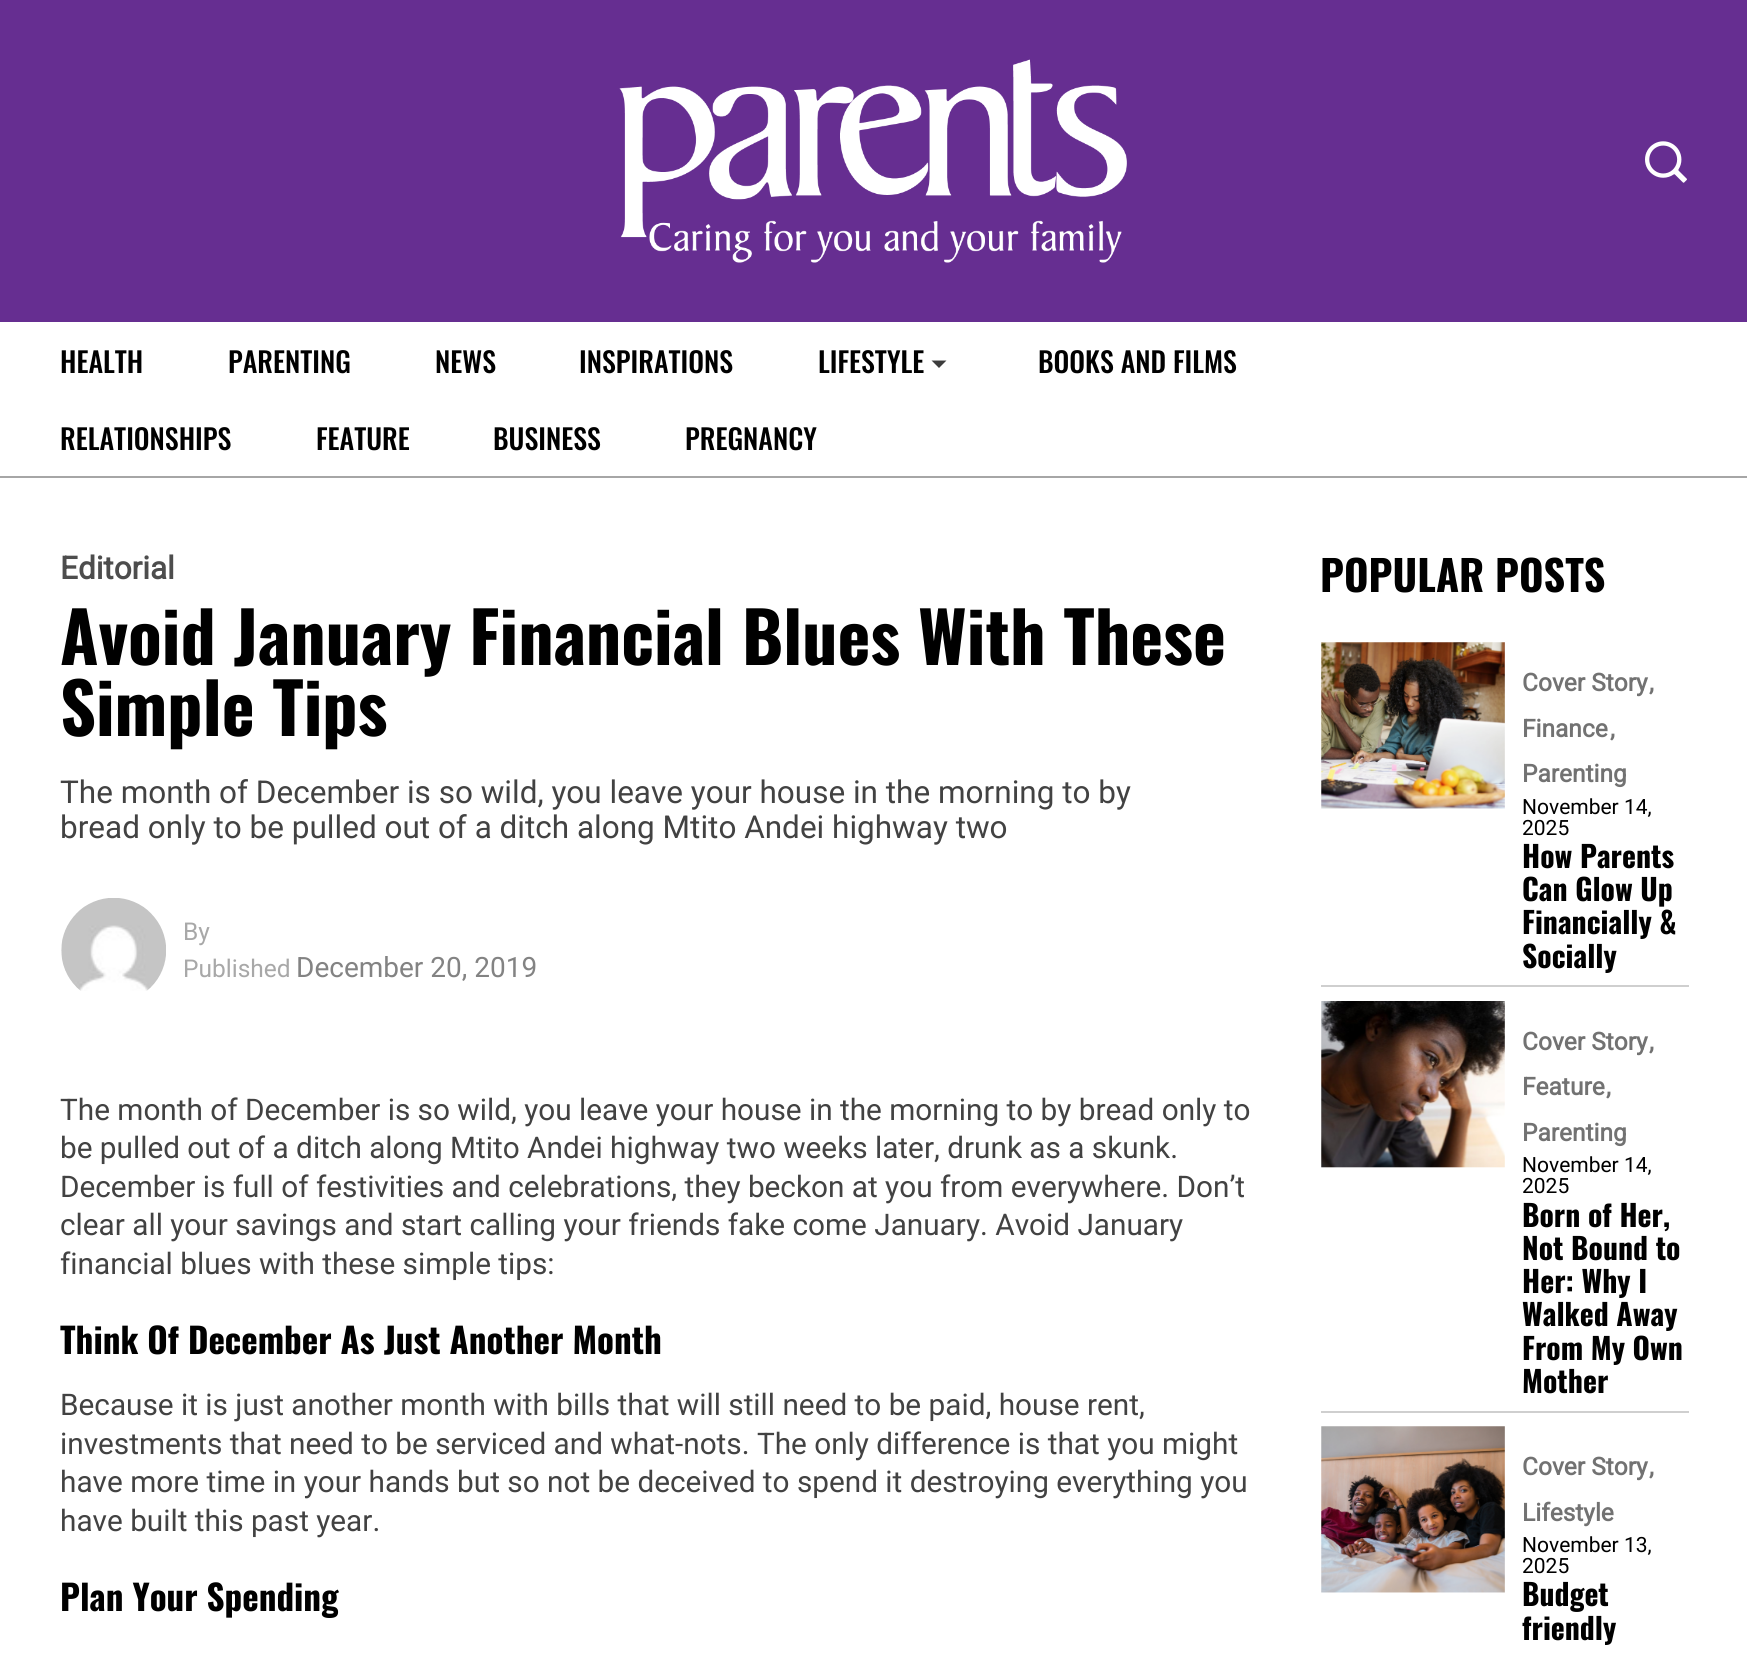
import math
import cairo


def use_color(cr, r, g, b):
  cr.set_source_rgb(r / 255, g / 255, b / 255)

def text(cr, x, y, s, family, size, color, bold=False, italic=False):
  cr.select_font_face(family, cairo.FONT_SLANT_ITALIC if italic else cairo.FONT_SLANT_NORMAL, cairo.FONT_WEIGHT_BOLD if bold else cairo.FONT_WEIGHT_NORMAL)
  cr.set_font_size(size)
  use_color(cr, *color)
  cr.move_to(x, y)
  cr.show_text(s)

def box(cr, x, y, w, h, *color):
  use_color(cr, *color)
  cr.rectangle(x, y, w, h)
  cr.fill()

def picture(cr, path, x, y, w, h):
  cr.save()
  cr.set_source_surface(cairo.ImageSurface.create_from_png(path), x, y)
  cr.rectangle(x, y, w, h)
  cr.fill()
  cr.restore()

def draw(cr):
  use_color(cr, 255, 255, 255)
  cr.paint()
  box(cr, 0, 0, 1747, 322, 102, 46, 145)
  picture(cr, "img_01.png", 619, 59, 508, 204)
  picture(cr, "img_02.png", 1645, 141, 42, 42)
  box(cr, 0, 476, 1747, 2, 166, 166, 166)
  use_color(cr, 60, 60, 60)
  cr.new_path()
  cr.move_to(939, 368)
  cr.line_to(931.5, 360.5)
  cr.line_to(946.5, 360.5)
  cr.close_path()
  cr.fill()
  picture(cr, "img_03.png", 61, 898, 105, 93)
  box(cr, 1321, 985, 368, 2, 207, 207, 207)
  picture(cr, "img_04.png", 1321, 642, 184, 167)
  box(cr, 1321, 1411, 368, 2, 207, 207, 207)
  picture(cr, "img_05.png", 1321, 1001, 184, 167)
  picture(cr, "img_06.png", 1321, 1426, 184, 167)
  text(cr, 60, 373, "HEALTH", "Oswald Medium", 28, (0, 0, 0))
  text(cr, 228, 373, "PARENTING", "Oswald Medium", 28, (0, 0, 0))
  text(cr, 435, 373, "NEWS", "Oswald Medium", 28, (0, 0, 0))
  text(cr, 579, 373, "INSPIRATIONS", "Oswald Medium", 28, (0, 0, 0))
  text(cr, 818, 373, "LIFESTYLE", "Oswald Medium", 28, (0, 0, 0))
  text(cr, 1038, 373, "BOOKS AND FILMS", "Oswald Medium", 28, (0, 0, 0))
  text(cr, 60, 450, "RELATIONSHIPS", "Oswald Medium", 28, (0, 0, 0))
  text(cr, 316, 450, "FEATURE", "Oswald Medium", 28, (0, 0, 0))
  text(cr, 493, 450, "BUSINESS", "Oswald Medium", 28, (0, 0, 0))
  text(cr, 685, 450, "PREGNANCY", "Oswald Medium", 28, (0, 0, 0))
  text(cr, 60, 579, "Editorial", "Roboto", 31.5, (77, 77, 77), bold=True)
  text(cr, 60, 665, "Avoid January Financial Blues With These", "Oswald", 70, (0, 0, 0), bold=True)
  text(cr, 60, 736, "Simple Tips", "Oswald", 70, (0, 0, 0), bold=True)
  text(cr, 60, 803, "The month of December is so wild, you leave your house in the morning to by", "Roboto", 31.5, (66, 66, 66))
  text(cr, 60, 838, "bread only to be pulled out of a ditch along Mtito Andei highway two", "Roboto", 31.5, (66, 66, 66))
  text(cr, 183, 940, "By", "Roboto", 24.5, (168, 168, 168))
  text(cr, 183, 977, "Published", "Roboto", 24.5, (168, 168, 168))
  text(cr, 296, 977, "December 20, 2019", "Roboto", 28, (131, 131, 131))
  text(cr, 60, 1120, "The month of December is so wild, you leave your house in the morning to by bread only to", "Roboto", 29.75, (66, 66, 66))
  text(cr, 60, 1158, "be pulled out of a ditch along Mtito Andei highway two weeks later, drunk as a skunk.", "Roboto", 29.75, (66, 66, 66))
  text(cr, 60, 1197, "December is full of festivities and celebrations, they beckon at you from everywhere. Don’t", "Roboto", 29.75, (66, 66, 66))
  text(cr, 60, 1235, "clear all your savings and start calling your friends fake come January. Avoid January", "Roboto", 29.75, (66, 66, 66))
  text(cr, 60, 1274, "financial blues with these simple tips:", "Roboto", 29.75, (66, 66, 66))
  text(cr, 60, 1354, "Think Of December As Just Another Month", "Oswald", 35, (0, 0, 0), bold=True)
  text(cr, 60, 1415, "Because it is just another month with bills that will still need to be paid, house rent,", "Roboto", 29.75, (66, 66, 66))
  text(cr, 60, 1454, "investments that need to be serviced and what-nots. The only difference is that you might", "Roboto", 29.75, (66, 66, 66))
  text(cr, 60, 1492, "have more time in your hands but so not be deceived to spend it destroying everything you", "Roboto", 29.75, (66, 66, 66))
  text(cr, 60, 1531, "have built this past year.", "Roboto", 29.75, (66, 66, 66))
  text(cr, 60, 1611, "Plan Your Spending", "Oswald", 35, (0, 0, 0), bold=True)
  text(cr, 1320, 592, "POPULAR POSTS", "Oswald", 42, (0, 0, 0), bold=True)
  text(cr, 1522, 691, "Cover Story", "Roboto", 24.5, (114, 114, 114), bold=True)
  text(cr, 1649, 691, ",", "Roboto", 24.5, (114, 114, 114), bold=True)
  text(cr, 1522, 737, "Finance", "Roboto", 24.5, (114, 114, 114), bold=True)
  text(cr, 1610, 737, ",", "Roboto", 24.5, (114, 114, 114), bold=True)
  text(cr, 1522, 782, "Parenting", "Roboto", 24.5, (114, 114, 114), bold=True)
  text(cr, 1522, 814, "November 14,", "Roboto", 21, (0, 0, 0))
  text(cr, 1522, 835, "2025", "Roboto", 21, (0, 0, 0))
  text(cr, 1522, 868, "How Parents", "Oswald", 29.75, (0, 0, 0), bold=True)
  text(cr, 1522, 901, "Can Glow Up", "Oswald", 29.75, (0, 0, 0), bold=True)
  text(cr, 1522, 934, "Financially &", "Oswald", 29.75, (0, 0, 0), bold=True)
  text(cr, 1522, 968, "Socially", "Oswald", 29.75, (0, 0, 0), bold=True)
  text(cr, 1522, 1050, "Cover Story", "Roboto", 24.5, (114, 114, 114), bold=True)
  text(cr, 1649, 1050, ",", "Roboto", 24.5, (114, 114, 114), bold=True)
  text(cr, 1522, 1095, "Feature", "Roboto", 24.5, (114, 114, 114), bold=True)
  text(cr, 1606, 1095, ",", "Roboto", 24.5, (114, 114, 114), bold=True)
  text(cr, 1522, 1141, "Parenting", "Roboto", 24.5, (114, 114, 114), bold=True)
  text(cr, 1522, 1172, "November 14,", "Roboto", 21, (0, 0, 0))
  text(cr, 1522, 1193, "2025", "Roboto", 21, (0, 0, 0))
  text(cr, 1522, 1227, "Born of Her,", "Oswald", 29.75, (0, 0, 0), bold=True)
  text(cr, 1522, 1260, "Not Bound to", "Oswald", 29.75, (0, 0, 0), bold=True)
  text(cr, 1522, 1293, "Her: Why I", "Oswald", 29.75, (0, 0, 0), bold=True)
  text(cr, 1522, 1326, "Walked Away", "Oswald", 29.75, (0, 0, 0), bold=True)
  text(cr, 1522, 1360, "From My Own", "Oswald", 29.75, (0, 0, 0), bold=True)
  text(cr, 1522, 1393, "Mother", "Oswald", 29.75, (0, 0, 0), bold=True)
  text(cr, 1522, 1475, "Cover Story", "Roboto", 24.5, (114, 114, 114), bold=True)
  text(cr, 1649, 1475, ",", "Roboto", 24.5, (114, 114, 114), bold=True)
  text(cr, 1522, 1521, "Lifestyle", "Roboto", 24.5, (114, 114, 114), bold=True)
  text(cr, 1522, 1552, "November 13,", "Roboto", 21, (0, 0, 0))
  text(cr, 1522, 1573, "2025", "Roboto", 21, (0, 0, 0))
  text(cr, 1522, 1606, "Budget", "Oswald", 29.75, (0, 0, 0), bold=True)
  text(cr, 1522, 1640, "friendly", "Oswald", 29.75, (0, 0, 0), bold=True)


surface = cairo.ImageSurface(cairo.FORMAT_RGB24, 1747, 1654)
cr = cairo.Context(surface)
options = cairo.FontOptions()
options.set_hint_metrics(cairo.HINT_METRICS_OFF)
options.set_hint_style(cairo.HINT_STYLE_NONE)
cr.set_font_options(options)
cr.set_miter_limit(4)
draw(cr)
surface.write_to_png("out.png")
